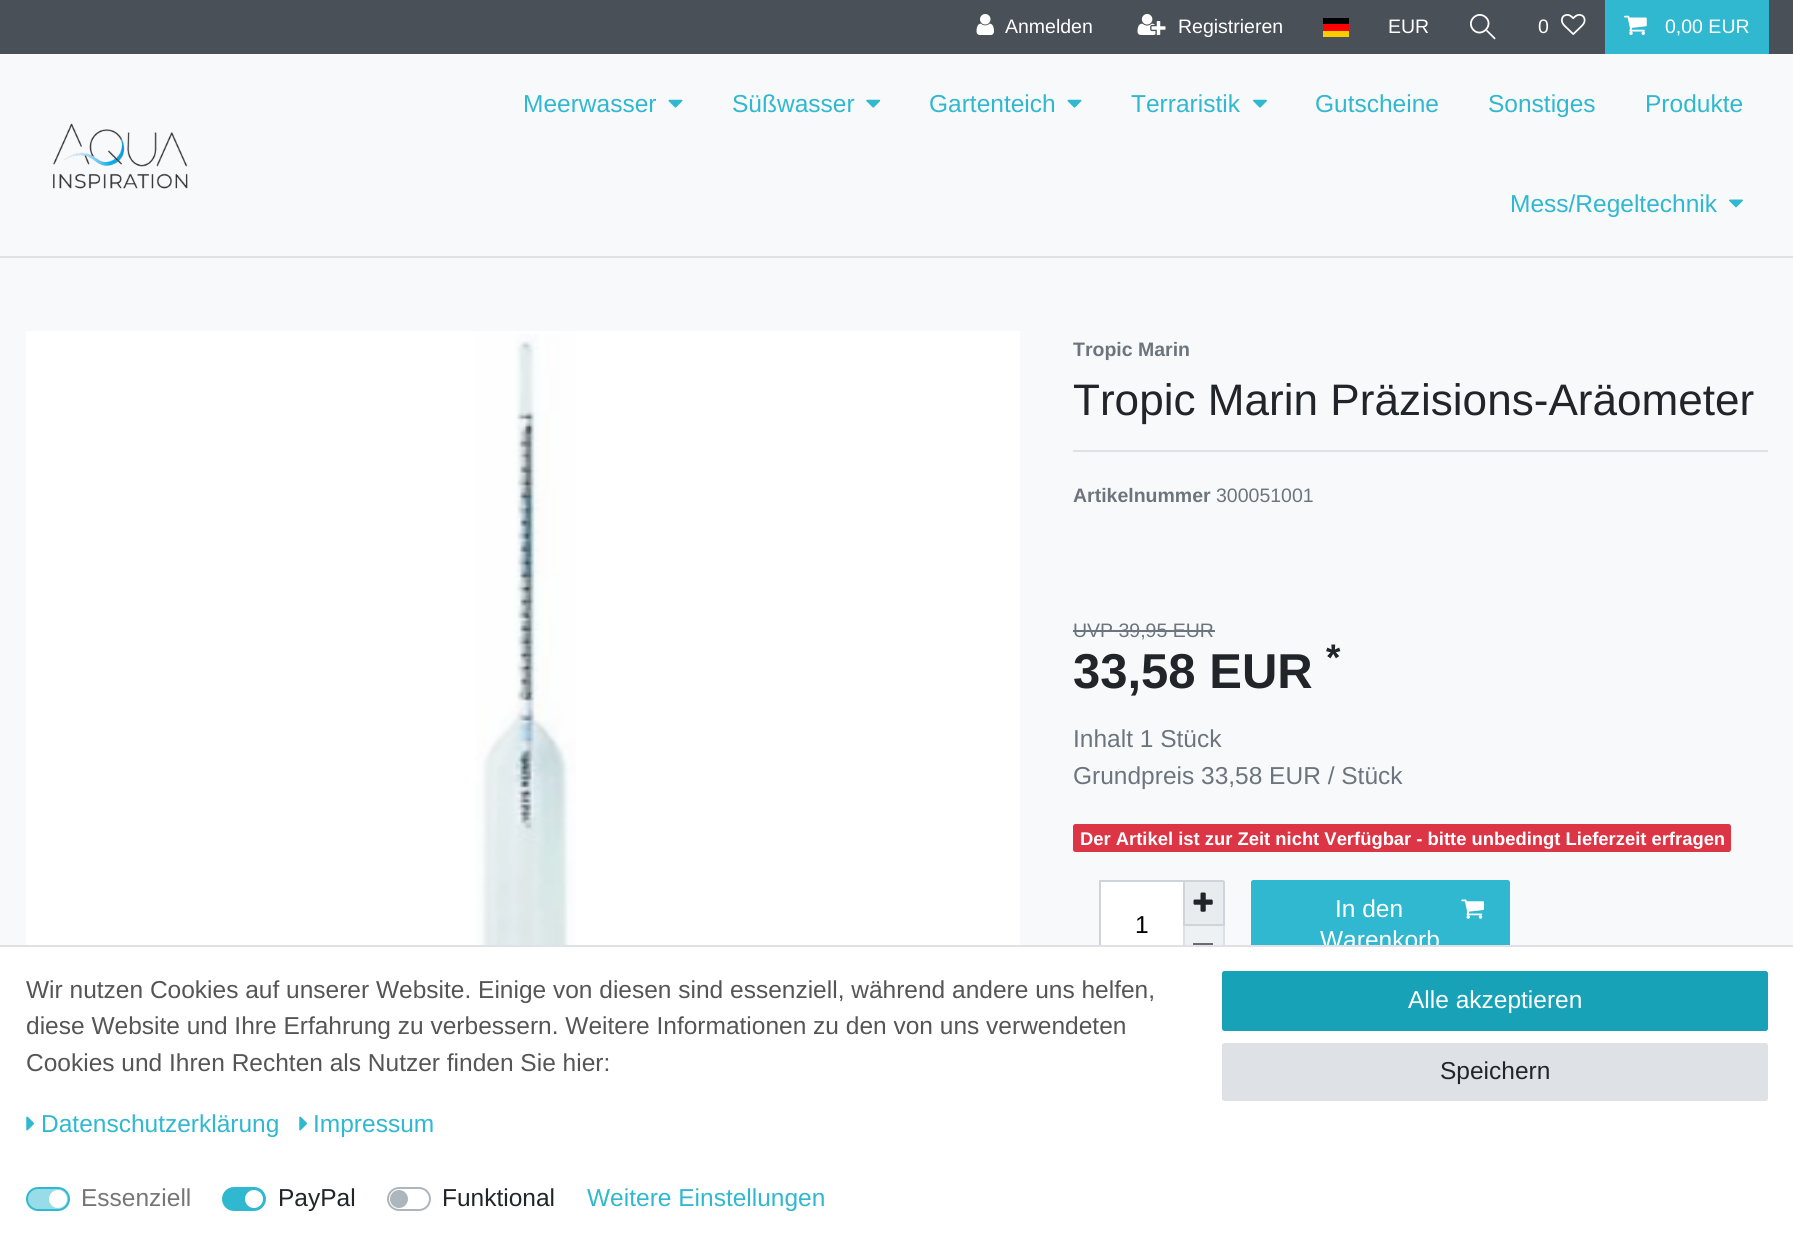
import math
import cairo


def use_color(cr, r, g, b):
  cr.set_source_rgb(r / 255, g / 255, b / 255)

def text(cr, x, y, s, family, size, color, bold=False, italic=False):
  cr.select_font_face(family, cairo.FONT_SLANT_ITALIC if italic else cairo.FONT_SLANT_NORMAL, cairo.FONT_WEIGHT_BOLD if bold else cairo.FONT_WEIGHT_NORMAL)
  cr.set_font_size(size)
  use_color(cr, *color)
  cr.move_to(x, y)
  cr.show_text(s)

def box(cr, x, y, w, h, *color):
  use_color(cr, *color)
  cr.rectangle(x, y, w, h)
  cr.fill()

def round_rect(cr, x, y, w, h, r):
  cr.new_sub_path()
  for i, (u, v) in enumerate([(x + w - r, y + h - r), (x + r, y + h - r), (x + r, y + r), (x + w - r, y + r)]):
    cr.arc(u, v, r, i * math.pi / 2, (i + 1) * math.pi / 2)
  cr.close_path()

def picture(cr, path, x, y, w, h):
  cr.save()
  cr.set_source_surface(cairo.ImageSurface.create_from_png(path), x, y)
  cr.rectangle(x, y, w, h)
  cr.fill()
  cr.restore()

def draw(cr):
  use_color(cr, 248, 249, 250)
  cr.paint()
  box(cr, 0, 0, 1793, 54, 73, 80, 87)
  picture(cr, "img_01.png", 976, 14, 18, 21)
  picture(cr, "img_02.png", 1137, 14, 29, 21)
  box(cr, 1323, 31, 26, 6, 255, 204, 0)
  box(cr, 1323, 18, 26, 6, 0, 0, 0)
  box(cr, 1323, 24, 26, 7, 255, 0, 0)
  use_color(cr, 255, 255, 255)
  cr.new_path()
  cr.move_to(1494, 39)
  cr.line_to(1476.5, 21.5)
  cr.line_to(1476.5, 21)
  cr.curve_to(1476.5, 20.5, 1477, 20, 1477.5, 20.5)
  cr.line_to(1495.5, 38)
  cr.curve_to(1495.5, 39, 1494.5, 40, 1494, 39)
  cr.close_path()
  cr.fill()
  use_color(cr, 73, 80, 87)
  cr.new_path()
  cr.move_to(1473, 30.5)
  cr.curve_to(1464, 21.5, 1477.5, 8, 1486.5, 17)
  cr.curve_to(1495.5, 26, 1481.5, 39.5, 1473, 30.5)
  cr.close_path()
  cr.fill()
  cr.new_path()
  cr.move_to(1473.5, 30)
  cr.curve_to(1465.5, 21.5, 1477.5, 9.5, 1486, 17.5)
  cr.curve_to(1494, 25.5, 1481.5, 38, 1473.5, 30)
  cr.close_path()
  use_color(cr, 255, 255, 255)
  cr.set_line_width(1.8)
  cr.stroke()
  picture(cr, "img_03.png", 1561, 14, 25, 21)
  box(cr, 1605, 0, 164, 54, 48, 184, 208)
  picture(cr, "img_04.png", 1624, 15, 23, 20)
  box(cr, 0, 256, 1793, 2, 222, 226, 230)
  picture(cr, "img_05.png", 53, 123, 135, 66)
  picture(cr, "img_06.png", 668, 99, 15, 9)
  picture(cr, "img_07.png", 866, 99, 15, 9)
  picture(cr, "img_06.png", 1067, 99, 15, 9)
  picture(cr, "img_08.png", 1253, 99, 14, 9)
  picture(cr, "img_09.png", 1729, 199, 14, 9)
  box(cr, 26, 331, 994, 614, 255, 255, 255)
  picture(cr, "img_10.png", 475, 334, 101, 611)
  box(cr, 1073, 450, 695, 2, 222, 226, 230)
  box(cr, 1073, 630, 142, 2, 108, 117, 125)
  use_color(cr, 220, 53, 69)
  round_rect(cr, 1073, 824, 658, 28, 2.5)
  cr.fill()
  box(cr, 1101, 882, 82, 63, 255, 255, 255)
  box(cr, 1099, 880, 84, 2, 206, 212, 218)
  box(cr, 1099, 880, 2, 65, 206, 212, 218)
  use_color(cr, 233, 236, 239)
  cr.new_path()
  cr.move_to(1184, 881)
  cr.line_to(1222.5, 881)
  cr.curve_to(1223.5, 881, 1224, 881.5, 1224, 882.5)
  cr.line_to(1224, 925)
  cr.line_to(1184, 925)
  cr.close_path()
  cr.fill_preserve()
  use_color(cr, 206, 212, 218)
  cr.set_line_width(2)
  cr.stroke()
  picture(cr, "img_11.png", 1193, 892, 20, 20)
  box(cr, 1185, 926, 38, 19, 238, 241, 243)
  box(cr, 1223, 926, 2, 19, 221, 225, 229)
  box(cr, 1183, 926, 2, 19, 221, 225, 229)
  box(cr, 1193, 943, 20, 2, 105, 108, 112)
  use_color(cr, 48, 184, 208)
  round_rect(cr, 1252, 881, 257, 88, 1.5)
  cr.fill_preserve()
  cr.stroke()
  picture(cr, "img_12.png", 1461, 899, 23, 20)
  box(cr, 0, 947, 1793, 293, 255, 255, 255)
  picture(cr, "img_13.png", 26, 1116, 9, 15)
  picture(cr, "img_13.png", 299, 1116, 9, 15)
  use_color(cr, 152, 220, 232)
  round_rect(cr, 27, 1188, 42, 22, 11)
  cr.fill_preserve()
  use_color(cr, 48, 184, 208)
  cr.stroke()
  use_color(cr, 255, 255, 255)
  cr.arc(58, 1199, 9, 0, 2 * math.pi)
  cr.fill()
  use_color(cr, 48, 184, 208)
  round_rect(cr, 223, 1188, 42, 22, 11)
  cr.fill_preserve()
  cr.stroke()
  use_color(cr, 255, 255, 255)
  cr.arc(254, 1199, 9, 0, 2 * math.pi)
  cr.fill()
  round_rect(cr, 388, 1188, 42, 22, 11)
  use_color(cr, 173, 181, 189)
  cr.stroke()
  cr.arc(399, 1199, 9, 0, 2 * math.pi)
  cr.fill()
  use_color(cr, 23, 162, 184)
  round_rect(cr, 1223, 972, 544, 58, 1.5)
  cr.fill_preserve()
  cr.stroke()
  use_color(cr, 222, 226, 230)
  round_rect(cr, 1223, 1044, 544, 56, 1.5)
  cr.fill_preserve()
  cr.stroke()
  text(cr, 1005, 33, "Anmelden", "Liberation Sans", 19.5, (255, 255, 255))
  text(cr, 1178, 33, "Registrieren", "Liberation Sans", 19.5, (255, 255, 255))
  text(cr, 1388, 33, "EUR", "Liberation Sans", 19.5, (255, 255, 255))
  text(cr, 1538, 33, "0", "Liberation Sans", 19.5, (255, 255, 255))
  text(cr, 1665, 33, "0,00 EUR", "Liberation Sans", 19.5, (255, 255, 255))
  text(cr, 523, 112, "Meerwasser", "Liberation Sans", 24.5, (48, 184, 208))
  text(cr, 732, 112, "Süßwasser", "Liberation Sans", 24.5, (48, 184, 208))
  text(cr, 929, 112, "Gartenteich", "Liberation Sans", 24.5, (48, 184, 208))
  text(cr, 1131, 112, "Terraristik", "Liberation Sans", 24.5, (48, 184, 208))
  text(cr, 1315, 112, "Gutscheine", "Liberation Sans", 24.5, (48, 184, 208))
  text(cr, 1488, 112, "Sonstiges", "Liberation Sans", 24.5, (48, 184, 208))
  text(cr, 1645, 112, "Produkte", "Liberation Sans", 24.5, (48, 184, 208))
  text(cr, 1510, 212, "Mess/Regeltechnik", "Liberation Sans", 24.5, (48, 184, 208))
  text(cr, 1073, 356, "Tropic Marin", "Liberation Sans", 19.5, (108, 117, 125), bold=True)
  text(cr, 1073, 415, "Tropic Marin Präzisions-Aräometer", "Liberation Sans", 44.1, (33, 37, 41))
  text(cr, 1073, 502, "Artikelnummer", "Liberation Sans", 19.5, (108, 117, 125), bold=True)
  text(cr, 1216, 502, "300051001", "Liberation Sans", 19.5, (108, 117, 125))
  text(cr, 1073, 637, "UVP 39,95 EUR", "Liberation Sans", 19.5, (108, 117, 125))
  text(cr, 1326, 670, "*", "Liberation Sans", 37, (33, 37, 41), bold=True)
  text(cr, 1073, 688, "33,58 EUR", "Liberation Sans", 49, (33, 37, 41), bold=True)
  text(cr, 1073, 747, "Inhalt 1 Stück", "Liberation Sans", 24.5, (108, 117, 125))
  text(cr, 1073, 784, "Grundpreis 33,58 EUR / Stück", "Liberation Sans", 24.5, (108, 117, 125))
  text(cr, 1080, 845, "Der Artikel ist zur Zeit nicht Verfügbar - bitte unbedingt Lieferzeit erfragen", "Liberation Sans", 18.4, (255, 255, 255), bold=True)
  text(cr, 1135, 933, "1", "Liberation Sans", 24.5, (0, 0, 0))
  text(cr, 1335, 917, "In den", "Liberation Sans", 24.5, (255, 255, 255))
  text(cr, 1320, 948, "Warenkorb", "Liberation Sans", 24.5, (255, 255, 255))
  box(cr, 0, 945, 1793, 2, 222, 226, 230)
  text(cr, 26, 998, "Wir nutzen Cookies auf unserer Website. Einige von diesen sind essenziell, während andere uns helfen,", "Liberation Sans", 24.5, (85, 85, 85))
  text(cr, 26, 1034, "diese Website und Ihre Erfahrung zu verbessern. Weitere Informationen zu den von uns verwendeten", "Liberation Sans", 24.5, (85, 85, 85))
  text(cr, 26, 1071, "Cookies und Ihren Rechten als Nutzer finden Sie hier:", "Liberation Sans", 24.5, (85, 85, 85))
  text(cr, 41, 1132, "Datenschutzerklärung", "Liberation Sans", 24.5, (48, 184, 208))
  text(cr, 313, 1132, "Impressum", "Liberation Sans", 24.5, (48, 184, 208))
  text(cr, 81, 1206, "Essenziell", "Liberation Sans", 24.5, (118, 118, 118))
  text(cr, 278, 1206, "PayPal", "Liberation Sans", 24.5, (33, 37, 41))
  text(cr, 442, 1206, "Funktional", "Liberation Sans", 24.5, (33, 37, 41))
  text(cr, 587, 1206, "Weitere Einstellungen", "Liberation Sans", 24.5, (48, 184, 208))
  text(cr, 1408, 1008, "Alle akzeptieren", "Liberation Sans", 24.5, (255, 255, 255))
  text(cr, 1440, 1079, "Speichern", "Liberation Sans", 24.5, (33, 37, 41))


surface = cairo.ImageSurface(cairo.FORMAT_RGB24, 1793, 1240)
cr = cairo.Context(surface)
options = cairo.FontOptions()
options.set_hint_metrics(cairo.HINT_METRICS_OFF)
options.set_hint_style(cairo.HINT_STYLE_NONE)
cr.set_font_options(options)
cr.set_miter_limit(4)
draw(cr)
surface.write_to_png("out.png")
